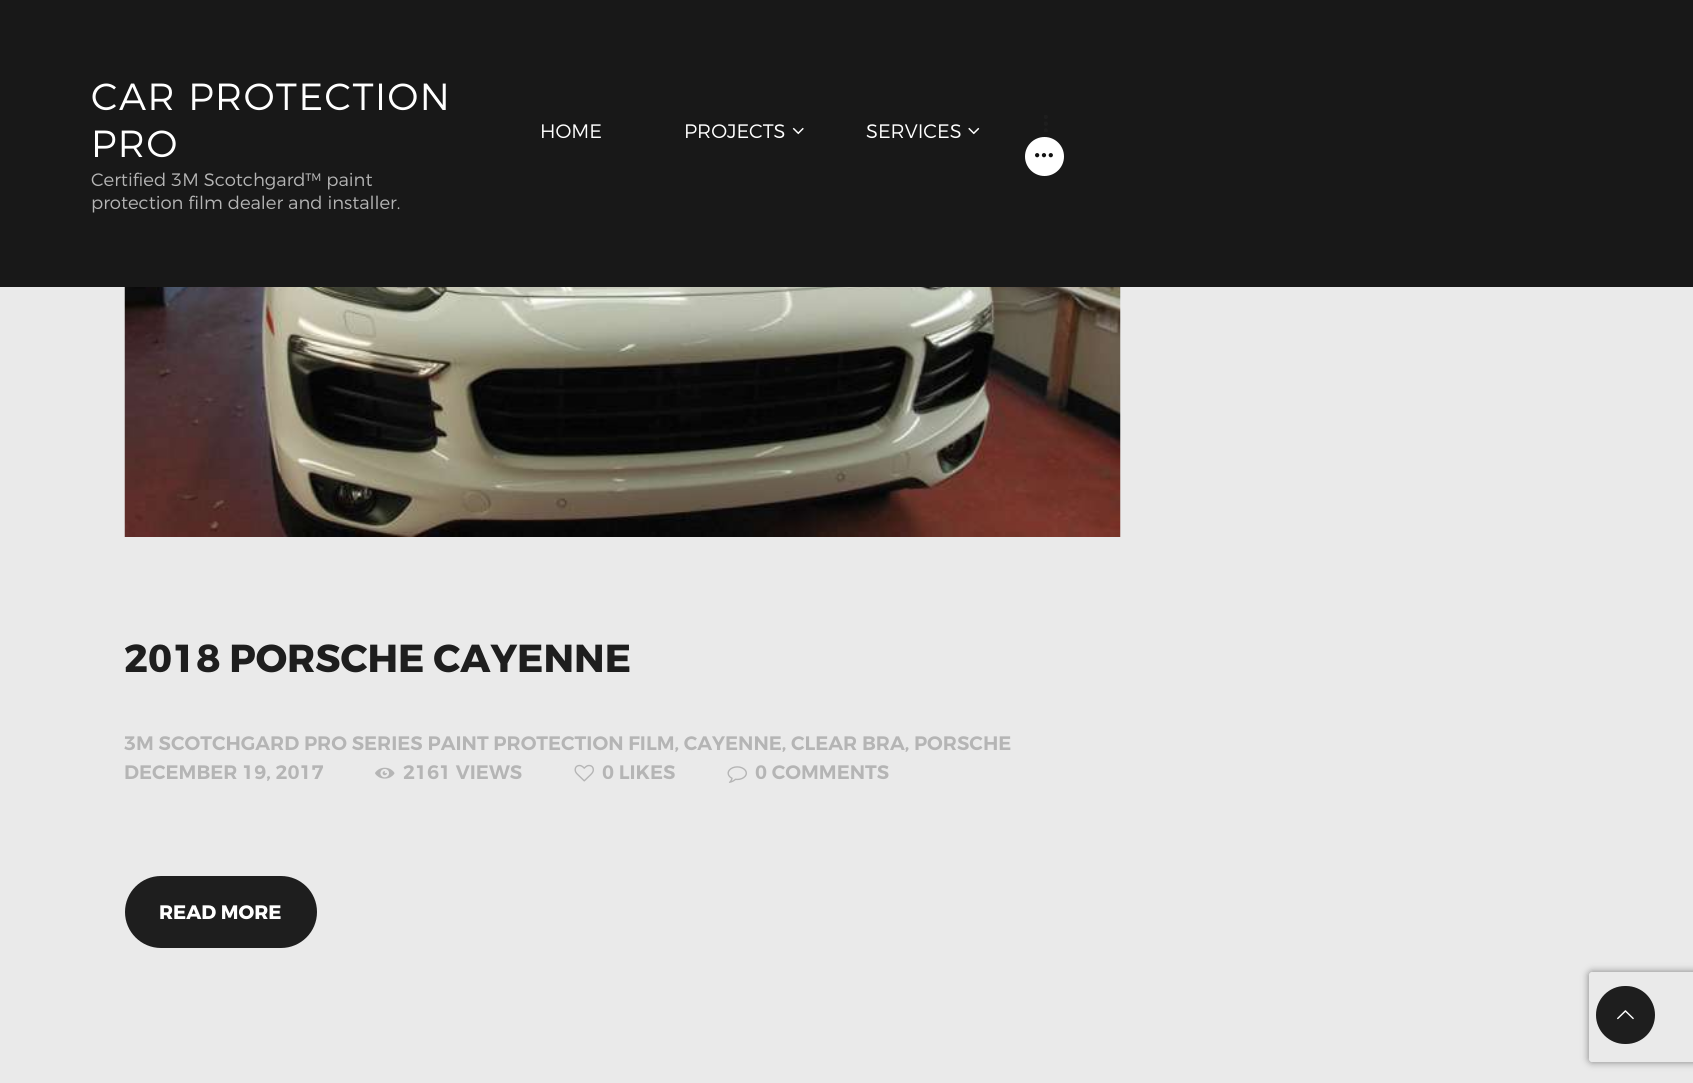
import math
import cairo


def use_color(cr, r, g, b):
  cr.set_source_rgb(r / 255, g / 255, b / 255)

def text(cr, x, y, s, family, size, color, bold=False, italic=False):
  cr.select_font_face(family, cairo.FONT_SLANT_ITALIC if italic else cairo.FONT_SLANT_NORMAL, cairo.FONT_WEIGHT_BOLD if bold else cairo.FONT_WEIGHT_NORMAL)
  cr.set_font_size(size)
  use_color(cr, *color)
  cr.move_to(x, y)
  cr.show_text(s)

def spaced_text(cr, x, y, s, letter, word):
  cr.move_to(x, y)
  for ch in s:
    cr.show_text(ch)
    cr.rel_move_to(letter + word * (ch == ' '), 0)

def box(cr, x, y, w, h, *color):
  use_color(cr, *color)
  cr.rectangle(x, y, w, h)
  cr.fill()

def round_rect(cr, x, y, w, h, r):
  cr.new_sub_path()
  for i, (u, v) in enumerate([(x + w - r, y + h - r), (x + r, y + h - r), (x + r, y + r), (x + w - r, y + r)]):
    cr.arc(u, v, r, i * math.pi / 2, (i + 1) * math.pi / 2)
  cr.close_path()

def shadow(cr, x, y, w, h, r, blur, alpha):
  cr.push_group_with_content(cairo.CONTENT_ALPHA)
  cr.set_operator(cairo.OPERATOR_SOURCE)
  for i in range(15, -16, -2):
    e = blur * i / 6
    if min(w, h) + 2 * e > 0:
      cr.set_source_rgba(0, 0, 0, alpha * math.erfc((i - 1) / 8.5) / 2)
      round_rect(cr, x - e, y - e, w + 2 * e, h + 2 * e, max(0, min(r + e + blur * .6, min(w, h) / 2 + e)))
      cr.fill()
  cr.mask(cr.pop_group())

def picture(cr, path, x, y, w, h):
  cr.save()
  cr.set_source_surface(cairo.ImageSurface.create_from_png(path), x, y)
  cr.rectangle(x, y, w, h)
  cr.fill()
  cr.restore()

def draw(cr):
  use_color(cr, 234, 234, 234)
  cr.paint()
  box(cr, 0, 0, 1693, 287, 24, 24, 24)
  picture(cr, "img_01.png", 792, 127, 12, 8)
  picture(cr, "img_02.png", 968, 127, 12, 8)
  picture(cr, "img_03.png", 1044, 115, 4, 17)
  use_color(cr, 255, 255, 255)
  cr.arc(1044.5, 156.5, 19.5, 0, 2 * math.pi)
  cr.fill()
  picture(cr, "img_04.png", 1035, 153, 18, 5)
  picture(cr, "img_05.png", 124, 287, 997, 250)
  picture(cr, "img_06.png", 375, 767, 20, 12)
  picture(cr, "img_07.png", 574, 764, 20, 18)
  picture(cr, "img_08.png", 727, 766, 20, 17)
  use_color(cr, 30, 30, 30)
  round_rect(cr, 125, 876, 192, 72, 36)
  cr.fill()
  cr.save()
  cr.set_fill_rule(cairo.FILL_RULE_EVEN_ODD)
  cr.new_path()
  cr.move_to(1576, 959)
  cr.line_to(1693, 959)
  cr.line_to(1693, 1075)
  cr.line_to(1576, 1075)
  cr.close_path()
  cr.move_to(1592, 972)
  cr.line_to(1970, 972)
  cr.curve_to(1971.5, 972, 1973, 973.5, 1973, 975)
  cr.line_to(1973, 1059)
  cr.curve_to(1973, 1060.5, 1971.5, 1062, 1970, 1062)
  cr.line_to(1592, 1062)
  cr.curve_to(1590.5, 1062, 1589, 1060.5, 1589, 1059)
  cr.line_to(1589, 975)
  cr.curve_to(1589, 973.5, 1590.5, 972, 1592, 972)
  cr.close_path()
  cr.clip()
  use_color(cr, 128, 128, 128)
  shadow(cr, 1589, 972, 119, 90, 3, 4, 1)
  cr.restore()
  round_rect(cr, 1596, 986, 59, 58, 29)
  cr.fill()
  picture(cr, "img_09.png", 1617, 1010, 17, 10)
  cr.select_font_face("Montserrat Light")
  cr.set_font_size(37.75)
  use_color(cr, 255, 255, 255)
  spaced_text(cr, 91, 110, "CAR PROTECTION", 1.5, 0)
  spaced_text(cr, 91, 157, "PRO", 1.5, 0)
  text(cr, 91, 186, "Certified 3M Scotchgard™ paint", "Montserrat Light", 18, (181, 181, 181))
  text(cr, 91, 209, "protection film dealer and installer.", "Montserrat Light", 18, (181, 181, 181))
  text(cr, 540, 138, "HOME", "Montserrat Light", 19.5, (255, 255, 255))
  text(cr, 684, 138, "PROJECTS", "Montserrat Light", 19.5, (255, 255, 255))
  text(cr, 866, 138, "SERVICES", "Montserrat Light", 19.5, (255, 255, 255))
  text(cr, 124, 672, "2018 PORSCHE CAYENNE", "Montserrat", 39, (30, 30, 30), bold=True)
  text(cr, 124, 750, "3M SCOTCHGARD PRO SERIES PAINT PROTECTION FILM, CAYENNE, CLEAR BRA, PORSCHE", "Montserrat SemiBold", 19.5, (181, 181, 181))
  text(cr, 124, 779, "DECEMBER 19, 2017", "Montserrat SemiBold", 19.5, (181, 181, 181))
  text(cr, 403, 779, "2161 VIEWS", "Montserrat SemiBold", 19.5, (181, 181, 181))
  text(cr, 602, 779, "0 LIKES", "Montserrat SemiBold", 19.5, (181, 181, 181))
  text(cr, 755, 779, "0 COMMENTS", "Montserrat SemiBold", 19.5, (181, 181, 181))
  text(cr, 159, 919, "READ MORE", "Montserrat", 19.5, (255, 255, 255), bold=True)


surface = cairo.ImageSurface(cairo.FORMAT_RGB24, 1693, 1083)
cr = cairo.Context(surface)
options = cairo.FontOptions()
options.set_hint_metrics(cairo.HINT_METRICS_OFF)
options.set_hint_style(cairo.HINT_STYLE_NONE)
cr.set_font_options(options)
cr.set_miter_limit(4)
draw(cr)
surface.write_to_png("out.png")
